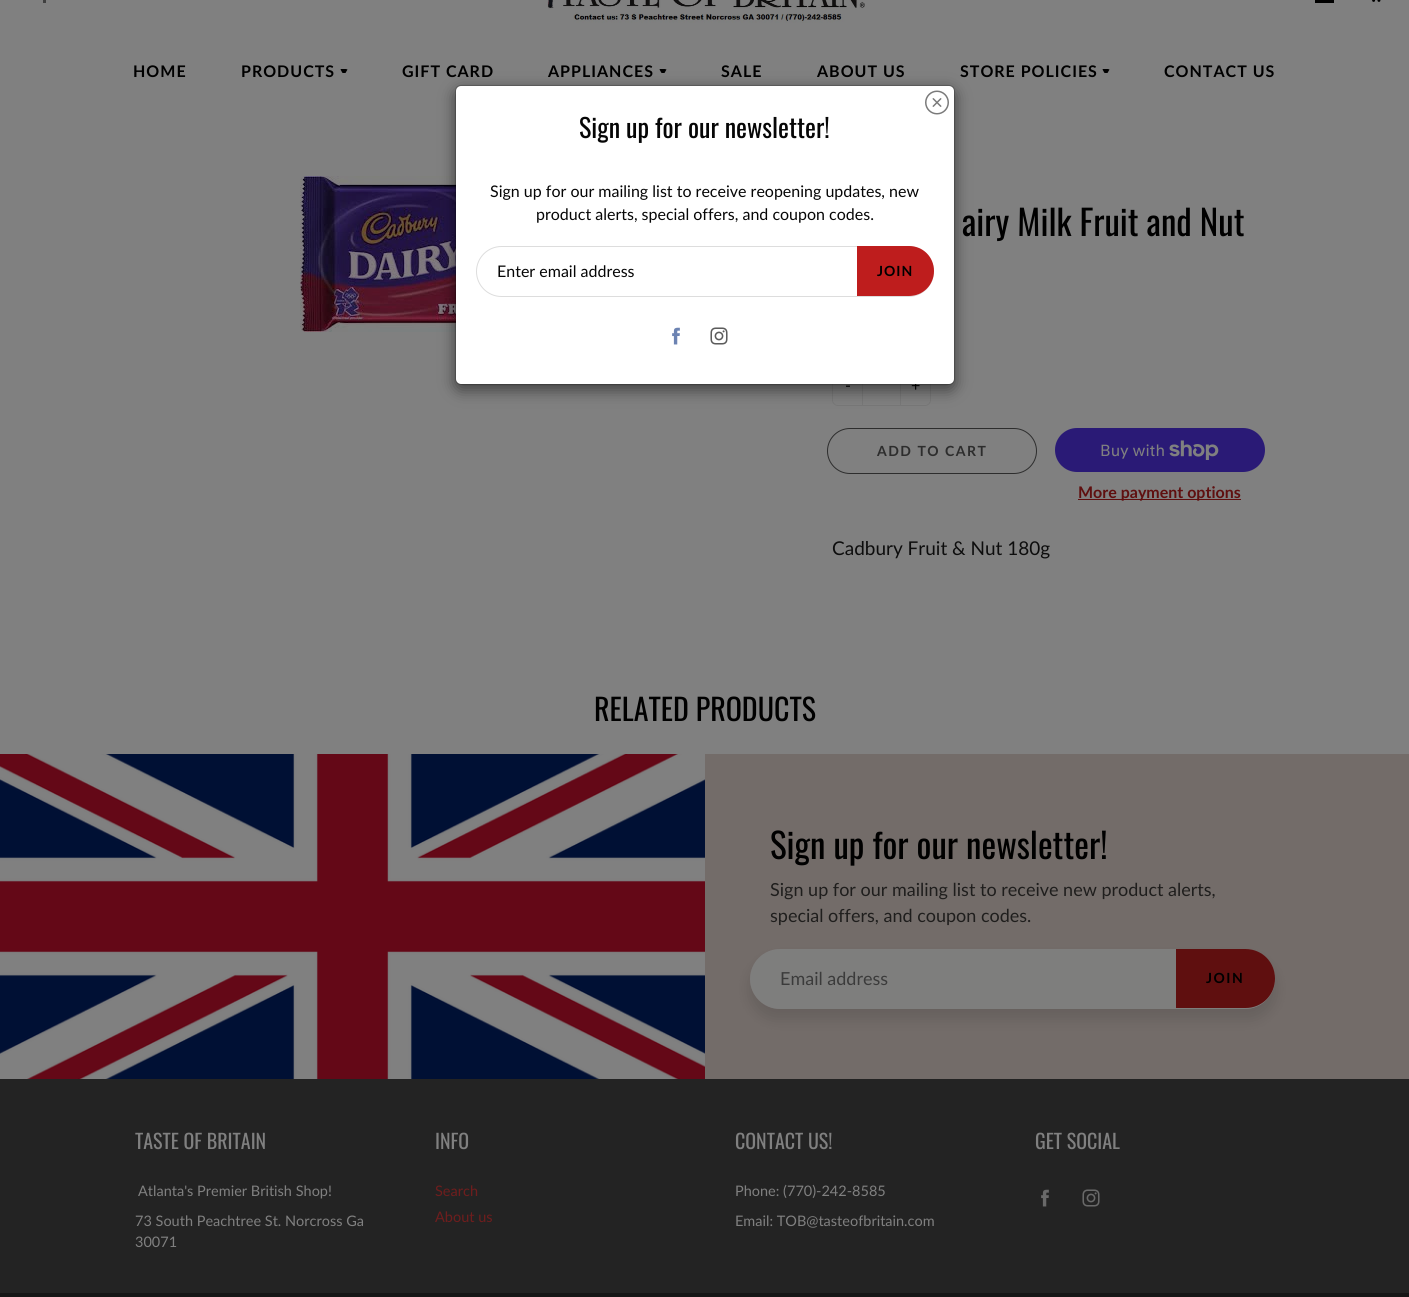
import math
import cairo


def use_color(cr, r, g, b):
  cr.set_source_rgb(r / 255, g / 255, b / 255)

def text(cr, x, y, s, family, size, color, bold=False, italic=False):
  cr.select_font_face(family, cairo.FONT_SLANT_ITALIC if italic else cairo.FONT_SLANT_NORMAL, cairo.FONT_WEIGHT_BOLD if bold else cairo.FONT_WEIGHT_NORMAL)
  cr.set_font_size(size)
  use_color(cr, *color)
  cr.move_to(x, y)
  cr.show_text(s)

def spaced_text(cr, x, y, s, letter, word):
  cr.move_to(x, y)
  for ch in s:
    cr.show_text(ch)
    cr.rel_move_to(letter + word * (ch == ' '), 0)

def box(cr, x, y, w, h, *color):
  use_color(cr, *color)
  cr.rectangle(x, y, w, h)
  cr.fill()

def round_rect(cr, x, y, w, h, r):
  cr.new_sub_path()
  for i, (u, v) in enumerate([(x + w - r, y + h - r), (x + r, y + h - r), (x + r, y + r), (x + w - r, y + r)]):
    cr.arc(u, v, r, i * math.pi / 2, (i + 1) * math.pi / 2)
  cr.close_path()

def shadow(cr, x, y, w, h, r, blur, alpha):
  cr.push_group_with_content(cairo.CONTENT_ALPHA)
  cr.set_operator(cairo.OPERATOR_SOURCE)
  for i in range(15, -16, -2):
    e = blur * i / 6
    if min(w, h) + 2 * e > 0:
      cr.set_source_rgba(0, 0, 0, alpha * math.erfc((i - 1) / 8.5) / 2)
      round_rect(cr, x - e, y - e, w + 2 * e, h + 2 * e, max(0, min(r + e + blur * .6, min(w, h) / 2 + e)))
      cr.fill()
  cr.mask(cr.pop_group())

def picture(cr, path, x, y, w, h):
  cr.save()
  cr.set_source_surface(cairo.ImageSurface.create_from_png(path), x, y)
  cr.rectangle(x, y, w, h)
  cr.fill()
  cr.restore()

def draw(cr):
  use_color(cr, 128, 128, 128)
  cr.paint()
  box(cr, 43, 0, 3, 3, 63, 63, 63)
  picture(cr, "img_01.png", 547, 0, 318, 23)
  box(cr, 1315, 0, 19, 3, 0, 0, 0)
  picture(cr, "img_02.png", 1372, 0, 9, 2)
  cr.new_path()
  cr.move_to(341, 69)
  cr.line_to(340.5, 69.5)
  cr.line_to(342.5, 73)
  cr.line_to(345.5, 73)
  cr.line_to(347.5, 69.5)
  cr.line_to(346, 69)
  cr.close_path()
  cr.fill()
  cr.new_path()
  cr.move_to(660, 69)
  cr.line_to(659.5, 69.5)
  cr.line_to(661.5, 73)
  cr.line_to(664.5, 73)
  cr.line_to(666.5, 69.5)
  cr.line_to(665, 69)
  cr.close_path()
  cr.fill()
  cr.new_path()
  cr.move_to(1103, 69)
  cr.line_to(1102.5, 69.5)
  cr.line_to(1104.5, 73)
  cr.line_to(1107.5, 73)
  cr.line_to(1109.5, 69.5)
  cr.line_to(1108, 69)
  cr.close_path()
  cr.fill()
  picture(cr, "img_06.png", 300, 176, 156, 156)
  round_rect(cr, 832.5, 363.5, 98, 42, 5.5)
  use_color(cr, 119, 119, 119)
  cr.set_line_width(1)
  cr.stroke()
  box(cr, 900, 384, 1, 21, 119, 119, 119)
  box(cr, 862, 384, 1, 21, 119, 119, 119)
  use_color(cr, 0, 0, 0)
  shadow(cr, 455, 90, 500, 300, 6, 7.5, 0.5)
  round_rect(cr, 827.5, 428.5, 209, 45, 22.5)
  use_color(cr, 45, 45, 45)
  cr.stroke()
  use_color(cr, 42, 26, 118)
  round_rect(cr, 1055, 428, 210, 44, 22)
  cr.fill()
  picture(cr, "img_07.png", 1169, 440, 50, 20)
  box(cr, 1078, 499, 163, 1, 95, 15, 15)
  box(cr, 705, 754, 704, 325, 115, 108, 105)
  picture(cr, "img_08.png", 0, 754, 705, 325)
  cr.save()
  cr.set_fill_rule(cairo.FILL_RULE_EVEN_ODD)
  cr.new_path()
  cr.move_to(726, 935)
  cr.line_to(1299, 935)
  cr.line_to(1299, 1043)
  cr.line_to(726, 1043)
  cr.close_path()
  cr.move_to(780, 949)
  cr.line_to(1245, 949)
  cr.curve_to(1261.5, 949, 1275, 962.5, 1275, 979)
  cr.curve_to(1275, 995.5, 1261.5, 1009, 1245, 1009)
  cr.line_to(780, 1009)
  cr.curve_to(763.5, 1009, 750, 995.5, 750, 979)
  cr.curve_to(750, 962.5, 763.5, 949, 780, 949)
  cr.close_path()
  cr.clip()
  use_color(cr, 0, 0, 0)
  shadow(cr, 750, 959, 525, 60, 30, 7.5, 0.12)
  cr.restore()
  cr.set_source_rgba(0.502, 0.502, 0.502, 0.9)
  round_rect(cr, 750, 949, 525, 60, 30)
  cr.fill()
  use_color(cr, 95, 15, 15)
  cr.new_path()
  cr.move_to(1176, 949)
  cr.line_to(1245.5, 949)
  cr.curve_to(1262, 949, 1275, 962, 1275, 978.5)
  cr.curve_to(1275, 995, 1262, 1008, 1245.5, 1008)
  cr.line_to(1176, 1008)
  cr.close_path()
  cr.fill()
  box(cr, 0, 1079, 1409, 214, 35, 35, 35)
  picture(cr, "img_09.png", 1041, 1189, 8, 18)
  picture(cr, "img_10.png", 1082, 1189, 18, 18)
  box(cr, 0, 1293, 1409, 4, 22, 22, 22)
  cr.select_font_face("Lato", cairo.FONT_SLANT_NORMAL, cairo.FONT_WEIGHT_BOLD)
  cr.set_font_size(16)
  use_color(cr, 0, 0, 0)
  spaced_text(cr, 133, 77, "HOME", 1, 0)
  spaced_text(cr, 241, 77, "PRODUCTS", 1, 0)
  spaced_text(cr, 402, 77, "GIFT CARD", 1, 0)
  spaced_text(cr, 548, 77, "APPLIANCES", 1, 0)
  spaced_text(cr, 721, 77, "SALE", 1, 0)
  spaced_text(cr, 817, 77, "ABOUT US", 1, 0)
  spaced_text(cr, 960, 77, "STORE POLICIES", 1, 0)
  spaced_text(cr, 1164, 77, "CONTACT US", 1, 0)
  text(cr, 962, 236, "airy Milk Fruit and Nut", "Oswald", 35, (0, 0, 0))
  text(cr, 845, 391, "-", "Lato", 16, (0, 0, 0))
  text(cr, 911, 391, "+", "Lato", 16, (0, 0, 0))
  use_color(cr, 255, 255, 255)
  round_rect(cr, 456, 86, 498, 298, 5)
  cr.fill()
  round_rect(cr, 455.5, 85.5, 499, 299, 5.5)
  cr.set_source_rgba(0, 0, 0, 0.2)
  cr.stroke()
  picture(cr, "img_03.png", 925, 90, 24, 25)
  picture(cr, "img_05.png", 710, 327, 18, 18)
  picture(cr, "img_04.png", 672, 327, 8, 18)
  round_rect(cr, 476.5, 246.5, 457, 50, 25)
  use_color(cr, 221, 221, 221)
  cr.stroke()
  use_color(cr, 190, 29, 29)
  cr.new_path()
  cr.move_to(857, 246)
  cr.line_to(909, 246)
  cr.curve_to(923, 246, 934, 257, 934, 271)
  cr.curve_to(934, 285, 923, 296, 909, 296)
  cr.line_to(857, 296)
  cr.close_path()
  cr.fill()
  cr.select_font_face("Lato", cairo.FONT_SLANT_NORMAL, cairo.FONT_WEIGHT_BOLD)
  cr.set_font_size(14)
  use_color(cr, 0, 0, 0)
  spaced_text(cr, 877, 276, "JOIN", 1, 0)
  text(cr, 497, 277, "Enter email address", "Lato", 16, (6, 6, 6))
  text(cr, 536, 220, "product alerts, special offers, and coupon codes.", "Lato", 16, (6, 6, 6))
  text(cr, 490, 197, "Sign up for our mailing list to receive reopening updates, new", "Lato", 16, (6, 6, 6))
  text(cr, 579, 138, "Sign up for our newsletter!", "Oswald", 26, (6, 6, 6))
  cr.select_font_face("Lato", cairo.FONT_SLANT_NORMAL, cairo.FONT_WEIGHT_BOLD)
  cr.set_font_size(14)
  use_color(cr, 45, 45, 45)
  spaced_text(cr, 877, 456, "ADD TO CART", 1.5, 0)
  text(cr, 1100, 456, "Buy with", "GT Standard", 16, (128, 128, 128))
  text(cr, 1078, 498, "More payment options", "Lato", 16, (95, 15, 15), bold=True)
  text(cr, 832, 555, "Cadbury Fruit & Nut 180g", "Lato", 19, (13, 13, 13))
  text(cr, 594, 721, "RELATED PRODUCTS", "Oswald", 30, (0, 0, 0))
  text(cr, 770, 859, "Sign up for our newsletter!", "Oswald", 35, (0, 0, 0))
  text(cr, 770, 896, "Sign up for our mailing list to receive new product alerts,", "Lato", 18, (31, 30, 29))
  text(cr, 770, 922, "special offers, and coupon codes.", "Lato", 18, (31, 30, 29))
  text(cr, 780, 985, "Email address", "Lato", 18, (59, 59, 59))
  cr.select_font_face("Lato", cairo.FONT_SLANT_NORMAL, cairo.FONT_WEIGHT_BOLD)
  cr.set_font_size(14)
  use_color(cr, 0, 0, 0)
  spaced_text(cr, 1206, 983, "JOIN", 1.5, 0)
  text(cr, 135, 1149, "TASTE OF BRITAIN", "Oswald", 20, (128, 128, 128))
  text(cr, 138, 1196, "Atlanta's Premier British Shop!", "Lato", 14.5, (128, 128, 128))
  text(cr, 135, 1226, "73 South Peachtree St. Norcross Ga", "Lato", 14.5, (128, 128, 128))
  text(cr, 135, 1247, "30071", "Lato", 14.5, (128, 128, 128))
  text(cr, 435, 1149, "INFO", "Oswald", 20, (128, 128, 128))
  text(cr, 435, 1196, "Search", "Lato", 14.5, (111, 29, 29))
  text(cr, 435, 1222, "About us", "Lato", 14.5, (111, 29, 29))
  text(cr, 735, 1149, "CONTACT US!", "Oswald", 20, (128, 128, 128))
  text(cr, 735, 1196, "Phone: (770)-242-8585", "Lato", 14.5, (128, 128, 128))
  text(cr, 735, 1226, "Email: TOB@tasteofbritain.com", "Lato", 14.5, (128, 128, 128))
  text(cr, 1035, 1149, "GET SOCIAL", "Oswald", 20, (128, 128, 128))


surface = cairo.ImageSurface(cairo.FORMAT_RGB24, 1409, 1297)
cr = cairo.Context(surface)
options = cairo.FontOptions()
options.set_hint_metrics(cairo.HINT_METRICS_OFF)
options.set_hint_style(cairo.HINT_STYLE_NONE)
cr.set_font_options(options)
cr.set_miter_limit(4)
draw(cr)
surface.write_to_png("out.png")
